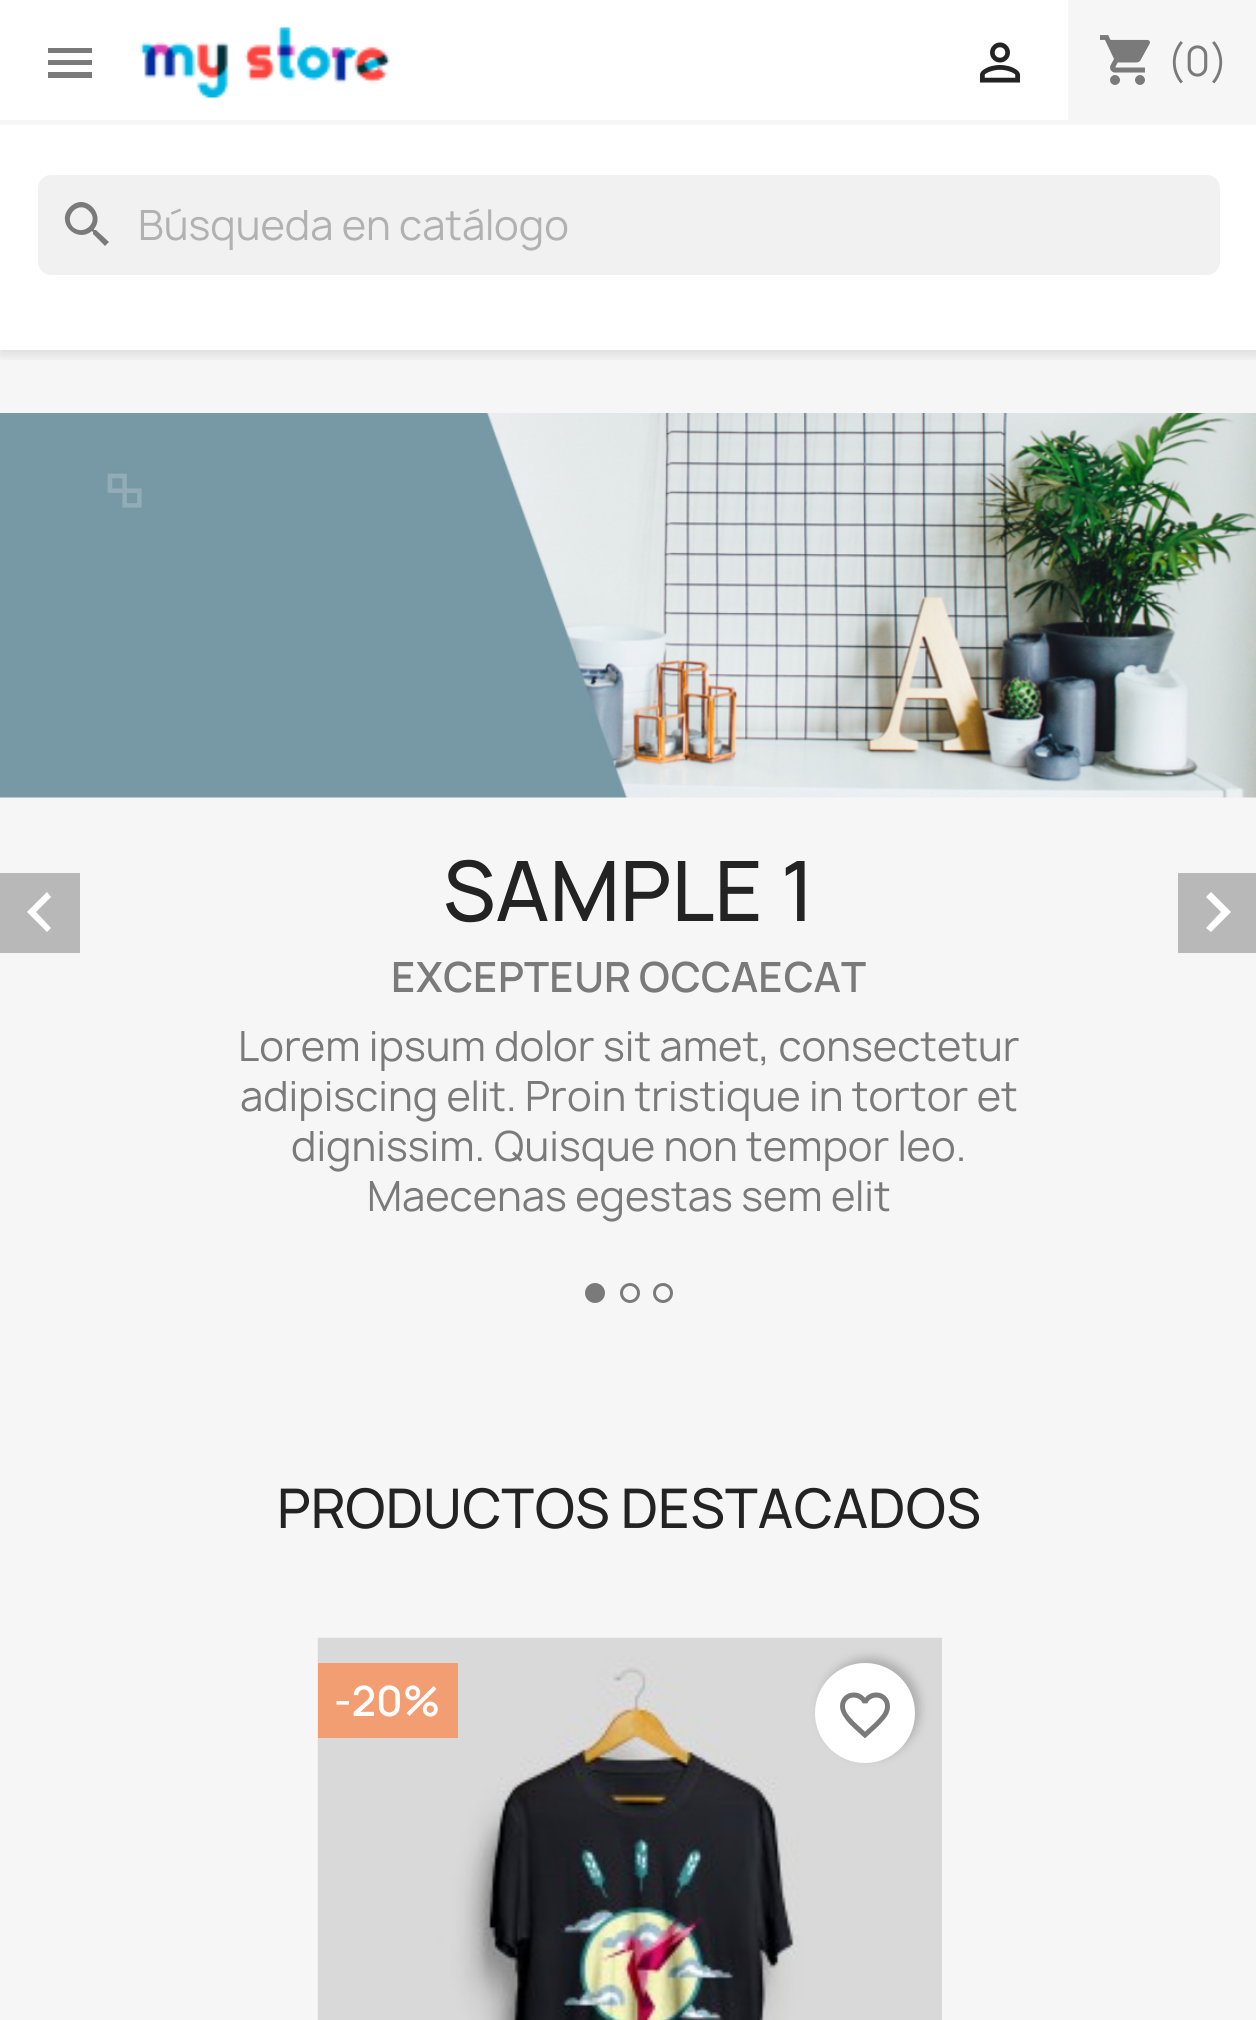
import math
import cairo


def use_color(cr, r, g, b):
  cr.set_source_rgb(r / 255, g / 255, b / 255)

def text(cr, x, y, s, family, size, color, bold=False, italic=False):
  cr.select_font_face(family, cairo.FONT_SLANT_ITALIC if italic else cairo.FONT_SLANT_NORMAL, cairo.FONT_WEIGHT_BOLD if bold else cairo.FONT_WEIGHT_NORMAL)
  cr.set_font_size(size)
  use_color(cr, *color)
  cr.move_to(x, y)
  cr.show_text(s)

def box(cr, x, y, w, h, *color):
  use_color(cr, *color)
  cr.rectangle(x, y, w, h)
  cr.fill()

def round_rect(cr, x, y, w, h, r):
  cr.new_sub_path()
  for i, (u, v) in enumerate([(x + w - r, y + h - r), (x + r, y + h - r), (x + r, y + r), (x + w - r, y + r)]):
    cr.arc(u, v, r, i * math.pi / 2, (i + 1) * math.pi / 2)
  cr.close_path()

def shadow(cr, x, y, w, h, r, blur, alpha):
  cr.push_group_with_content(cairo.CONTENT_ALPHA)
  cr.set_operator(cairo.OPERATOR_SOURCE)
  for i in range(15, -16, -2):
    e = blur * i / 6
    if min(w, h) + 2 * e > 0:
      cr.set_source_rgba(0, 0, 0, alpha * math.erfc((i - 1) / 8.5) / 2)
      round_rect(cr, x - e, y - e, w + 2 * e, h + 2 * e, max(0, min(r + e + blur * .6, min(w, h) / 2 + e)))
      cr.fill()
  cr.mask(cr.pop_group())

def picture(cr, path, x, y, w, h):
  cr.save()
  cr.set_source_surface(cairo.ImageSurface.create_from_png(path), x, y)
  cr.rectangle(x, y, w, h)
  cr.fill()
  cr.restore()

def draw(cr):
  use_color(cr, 255, 255, 255)
  cr.paint()
  box(cr, 0, 350, 1256, 1670, 246, 246, 246)
  cr.save()
  cr.rectangle(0, 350, 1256, 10)
  cr.clip()
  use_color(cr, 0, 0, 0)
  shadow(cr, 0, 5, 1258, 350, 0, 6, 0.11)
  cr.restore()
  box(cr, 0, 120, 1256, 5, 246, 246, 246)
  use_color(cr, 122, 122, 122)
  cr.new_path()
  cr.move_to(48, 48)
  cr.line_to(92, 48)
  cr.line_to(92, 53)
  cr.line_to(48, 53)
  cr.close_path()
  cr.move_to(48, 65)
  cr.line_to(48, 60)
  cr.line_to(92, 60)
  cr.line_to(92, 65)
  cr.close_path()
  cr.move_to(48, 78)
  cr.line_to(48, 72)
  cr.line_to(92, 72)
  cr.line_to(92, 78)
  cr.close_path()
  cr.fill()
  picture(cr, "img_01.png", 140, 27, 250, 71)
  picture(cr, "img_02.png", 979, 42, 42, 41)
  box(cr, 1068, 0, 188, 120, 246, 246, 246)
  picture(cr, "img_03.png", 1099, 35, 51, 50)
  use_color(cr, 241, 241, 241)
  round_rect(cr, 38, 175, 1182, 100, 13)
  cr.fill()
  use_color(cr, 122, 122, 122)
  cr.new_path()
  cr.move_to(73, 227)
  cr.curve_to(84, 237, 100, 221, 89, 211)
  cr.curve_to(79, 200, 63, 216, 73, 227)
  cr.close_path()
  cr.move_to(96, 230)
  cr.line_to(109, 242)
  cr.line_to(105, 246)
  cr.line_to(93, 234)
  cr.line_to(93, 232)
  cr.line_to(92, 231)
  cr.curve_to(76, 244, 55, 222, 70, 207)
  cr.curve_to(85, 192, 106, 214, 94, 229)
  cr.line_to(94, 230)
  cr.close_path()
  cr.fill()
  picture(cr, "img_04.png", 0, 413, 1256, 385)
  box(cr, 0, 873, 80, 80, 184, 184, 184)
  use_color(cr, 255, 255, 255)
  cr.new_path()
  cr.move_to(51, 897)
  cr.line_to(36, 912)
  cr.line_to(51, 928)
  cr.line_to(47, 932)
  cr.line_to(27, 912)
  cr.line_to(47, 892)
  cr.close_path()
  cr.fill()
  box(cr, 1178, 873, 78, 80, 184, 184, 184)
  use_color(cr, 255, 255, 255)
  cr.new_path()
  cr.move_to(1211, 892)
  cr.line_to(1231, 912)
  cr.line_to(1211, 932)
  cr.line_to(1206, 928)
  cr.line_to(1221, 912)
  cr.line_to(1206, 897)
  cr.close_path()
  cr.fill()
  use_color(cr, 122, 122, 122)
  cr.arc(595, 1293, 8.5, 0, 2 * math.pi)
  cr.fill_preserve()
  cr.set_line_width(3)
  cr.stroke()
  cr.arc(630, 1293, 8.5, 0, 2 * math.pi)
  cr.stroke()
  cr.arc(663, 1293, 8.5, 0, 2 * math.pi)
  cr.stroke()
  box(cr, 942, 1638, 1, 382, 255, 255, 255)
  picture(cr, "img_05.png", 317, 1637, 626, 383)
  box(cr, 318, 1663, 140, 75, 243, 157, 114)
  use_color(cr, 0, 0, 0)
  shadow(cr, 820, 1658, 100, 100, 50, 5, 0.2)
  use_color(cr, 255, 255, 255)
  cr.arc(865, 1713, 50, 0, 2 * math.pi)
  cr.fill()
  picture(cr, "img_06.png", 840, 1692, 50, 47)
  text(cr, 1167, 76, "(0)", "Manrope", 40, (122, 122, 122))
  text(cr, 138, 240, "Búsqueda en catálogo", "Manrope", 40, (177, 177, 177))
  text(cr, 443, 921, "SAMPLE 1", "Manrope Medium", 80, (35, 35, 35))
  text(cr, 391, 992, "EXCEPTEUR OCCAECAT", "Manrope SemiBold", 40, (122, 122, 122))
  text(cr, 238, 1061, "Lorem ipsum dolor sit amet, consectetur", "Manrope", 40, (122, 122, 122))
  text(cr, 240, 1111, "adipiscing elit. Proin tristique in tortor et", "Manrope", 40, (122, 122, 122))
  text(cr, 291, 1161, "dignissim. Quisque non tempor leo.", "Manrope", 40, (122, 122, 122))
  text(cr, 367, 1211, "Maecenas egestas sem elit", "Manrope", 40, (122, 122, 122))
  text(cr, 277, 1528, "PRODUCTOS DESTACADOS", "Manrope Medium", 52.5, (35, 35, 35))
  text(cr, 334, 1716, "-20%", "Manrope SemiBold", 40, (255, 255, 255))


surface = cairo.ImageSurface(cairo.FORMAT_RGB24, 1256, 2020)
cr = cairo.Context(surface)
options = cairo.FontOptions()
options.set_hint_metrics(cairo.HINT_METRICS_OFF)
options.set_hint_style(cairo.HINT_STYLE_NONE)
cr.set_font_options(options)
cr.set_miter_limit(4)
draw(cr)
surface.write_to_png("out.png")
